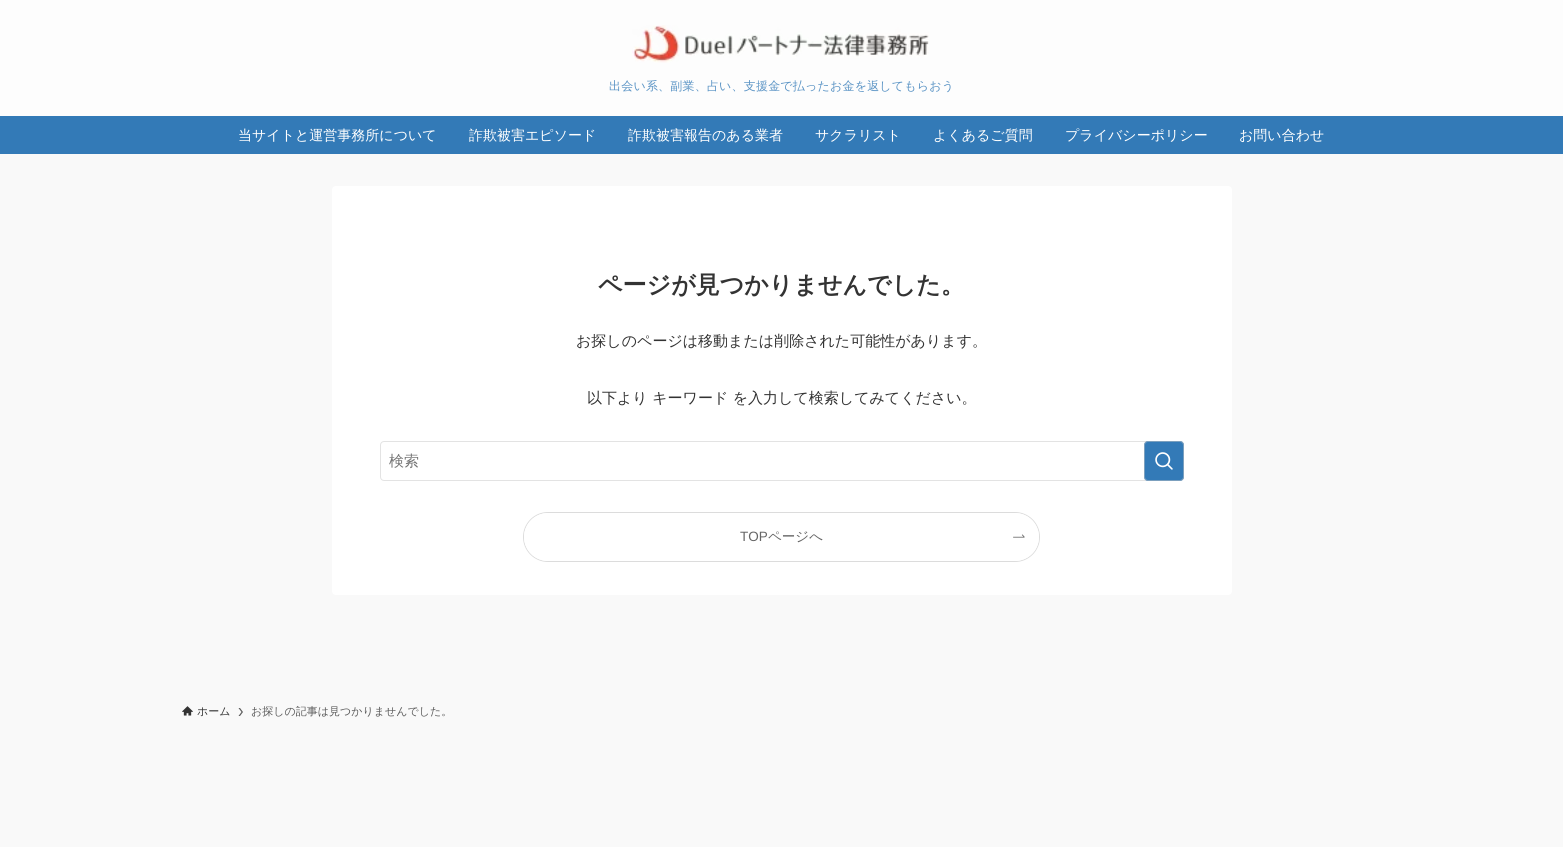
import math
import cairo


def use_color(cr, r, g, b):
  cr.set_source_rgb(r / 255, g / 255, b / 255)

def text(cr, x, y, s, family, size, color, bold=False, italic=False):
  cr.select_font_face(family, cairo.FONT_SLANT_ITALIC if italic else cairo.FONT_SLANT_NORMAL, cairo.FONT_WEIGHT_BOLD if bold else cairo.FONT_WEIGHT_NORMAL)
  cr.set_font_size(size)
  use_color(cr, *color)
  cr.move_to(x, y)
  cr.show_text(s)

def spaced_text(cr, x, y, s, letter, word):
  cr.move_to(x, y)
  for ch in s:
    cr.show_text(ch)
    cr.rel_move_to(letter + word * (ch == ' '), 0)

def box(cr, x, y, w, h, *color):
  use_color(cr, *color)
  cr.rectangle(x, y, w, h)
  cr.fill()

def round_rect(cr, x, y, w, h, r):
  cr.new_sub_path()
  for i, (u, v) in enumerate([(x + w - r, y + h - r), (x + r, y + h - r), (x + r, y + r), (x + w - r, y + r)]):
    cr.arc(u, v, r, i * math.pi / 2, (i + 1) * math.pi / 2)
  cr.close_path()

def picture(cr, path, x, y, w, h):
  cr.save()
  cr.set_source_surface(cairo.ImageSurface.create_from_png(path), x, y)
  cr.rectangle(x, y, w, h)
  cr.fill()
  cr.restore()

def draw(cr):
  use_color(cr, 249, 249, 249)
  cr.paint()
  box(cr, 0, 0, 1563, 116, 253, 253, 253)
  picture(cr, "img_01.png", 632, 25, 297, 38)
  box(cr, 0, 116, 1563, 38, 51, 122, 183)
  use_color(cr, 255, 255, 255)
  round_rect(cr, 332, 186, 900, 409, 4)
  cr.fill()
  round_rect(cr, 380.5, 441.5, 803, 39, 3.5)
  use_color(cr, 227, 227, 227)
  cr.set_line_width(1)
  cr.stroke()
  use_color(cr, 51, 122, 183)
  round_rect(cr, 1144, 441, 40, 40, 4)
  cr.fill()
  round_rect(cr, 1144.5, 441.5, 39, 39, 3.5)
  cr.set_source_rgba(0.78, 0.78, 0.78, 0.5)
  cr.stroke()
  picture(cr, "img_02.png", 1155, 452, 18, 18)
  round_rect(cr, 523.5, 512.5, 516, 49, 24.5)
  use_color(cr, 220, 220, 220)
  cr.stroke()
  use_color(cr, 255, 255, 255)
  round_rect(cr, 524, 513, 515, 48, 24)
  cr.fill()
  picture(cr, "img_03.png", 1013, 534, 12, 4)
  picture(cr, "img_04.png", 182, 706, 11, 10)
  use_color(cr, 91, 91, 91)
  cr.new_path()
  cr.move_to(240, 708)
  cr.line_to(238.5, 708)
  cr.line_to(241.5, 712)
  cr.line_to(238.5, 716)
  cr.line_to(240, 716)
  cr.line_to(243, 712)
  cr.close_path()
  cr.fill()
  cr.select_font_face("WenQuanYi Zen Hei Medium")
  cr.set_font_size(12)
  use_color(cr, 91, 148, 197)
  spaced_text(cr, 609, 90, "出会い系、副業、占い、支援金で払ったお金を返してもらおう", 0.2, 0)
  text(cr, 238, 140, "当サイトと運営事務所について", "WenQuanYi Zen Hei Medium", 14, (255, 255, 255))
  text(cr, 469, 140, "詐欺被害エピソード", "WenQuanYi Zen Hei Medium", 14, (255, 255, 255))
  text(cr, 628, 140, "詐欺被害報告のある業者", "WenQuanYi Zen Hei Medium", 14, (255, 255, 255))
  text(cr, 815, 140, "サクラリスト", "WenQuanYi Zen Hei Medium", 14, (255, 255, 255))
  text(cr, 933, 140, "よくあるご質問", "WenQuanYi Zen Hei Medium", 14, (255, 255, 255))
  text(cr, 1065, 140, "プライバシーポリシー", "WenQuanYi Zen Hei Medium", 14, (255, 255, 255))
  text(cr, 1239, 140, "お問い合わせ", "WenQuanYi Zen Hei Medium", 14, (255, 255, 255))
  text(cr, 598, 293, "ページが見つかりませんでした。", "WenQuanYi Zen Hei", 24, (51, 51, 51), bold=True)
  text(cr, 576, 346, "お探しのページは移動または削除された可能性があります。", "WenQuanYi Zen Hei Medium", 15, (51, 51, 51))
  text(cr, 587, 403, "以下より キーワード を入力して検索してみてください。", "WenQuanYi Zen Hei Medium", 15, (51, 51, 51))
  text(cr, 389, 466, "検索", "WenQuanYi Zen Hei Medium", 15, (117, 117, 117))
  text(cr, 740, 541, "TOP", "Liberation Sans", 13.5, (102, 102, 102))
  text(cr, 768, 541, "ページへ", "WenQuanYi Zen Hei Medium", 13.5, (102, 102, 102))
  text(cr, 197, 715, "ホーム", "WenQuanYi Zen Hei Medium", 11, (51, 51, 51))
  text(cr, 251, 715, "お探しの記事は見つかりませんでした。", "WenQuanYi Zen Hei Medium", 11, (91, 91, 91))


surface = cairo.ImageSurface(cairo.FORMAT_RGB24, 1563, 847)
cr = cairo.Context(surface)
options = cairo.FontOptions()
options.set_hint_metrics(cairo.HINT_METRICS_OFF)
options.set_hint_style(cairo.HINT_STYLE_NONE)
cr.set_font_options(options)
cr.set_miter_limit(4)
draw(cr)
surface.write_to_png("out.png")
